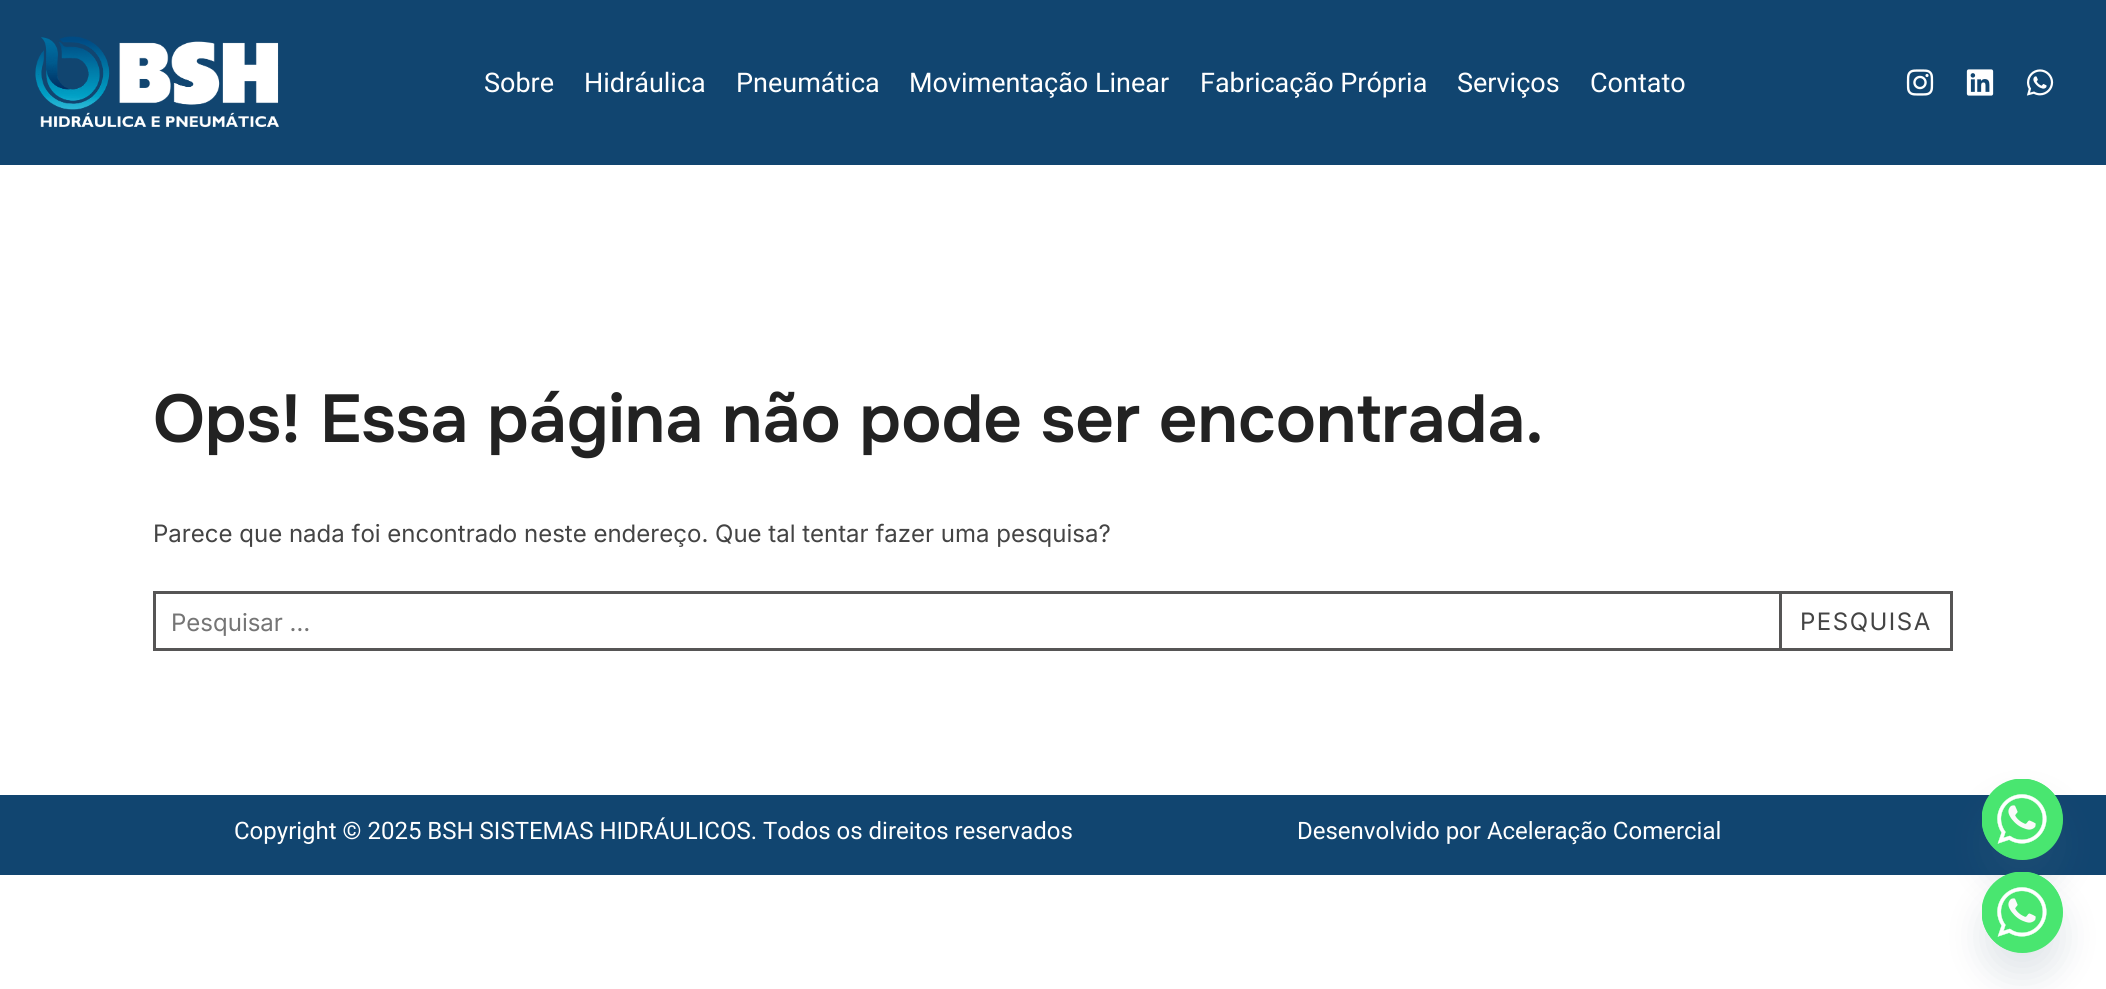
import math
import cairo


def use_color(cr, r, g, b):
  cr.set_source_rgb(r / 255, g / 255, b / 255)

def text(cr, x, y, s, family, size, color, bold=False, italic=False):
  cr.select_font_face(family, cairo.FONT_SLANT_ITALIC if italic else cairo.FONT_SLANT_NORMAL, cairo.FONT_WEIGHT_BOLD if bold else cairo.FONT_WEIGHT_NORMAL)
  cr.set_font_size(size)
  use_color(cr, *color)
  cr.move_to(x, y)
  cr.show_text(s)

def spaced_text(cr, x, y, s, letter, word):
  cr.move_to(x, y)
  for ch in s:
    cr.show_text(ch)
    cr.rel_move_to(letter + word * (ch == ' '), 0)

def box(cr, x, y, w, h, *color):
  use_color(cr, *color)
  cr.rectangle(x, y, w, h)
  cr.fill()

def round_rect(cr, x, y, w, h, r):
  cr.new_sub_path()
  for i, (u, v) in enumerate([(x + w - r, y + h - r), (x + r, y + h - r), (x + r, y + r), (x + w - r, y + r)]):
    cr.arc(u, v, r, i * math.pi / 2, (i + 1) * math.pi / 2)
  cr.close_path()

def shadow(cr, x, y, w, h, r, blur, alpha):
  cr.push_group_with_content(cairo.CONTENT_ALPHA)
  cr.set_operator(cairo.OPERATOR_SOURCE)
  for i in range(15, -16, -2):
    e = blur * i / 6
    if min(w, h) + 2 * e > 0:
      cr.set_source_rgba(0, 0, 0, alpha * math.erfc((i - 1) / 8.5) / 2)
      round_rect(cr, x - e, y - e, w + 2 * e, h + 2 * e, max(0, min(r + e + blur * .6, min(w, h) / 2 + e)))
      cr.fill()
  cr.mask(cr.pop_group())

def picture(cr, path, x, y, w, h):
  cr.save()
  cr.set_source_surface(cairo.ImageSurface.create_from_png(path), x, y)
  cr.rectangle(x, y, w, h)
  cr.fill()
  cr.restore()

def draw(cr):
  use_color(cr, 255, 255, 255)
  cr.paint()
  box(cr, 0, 0, 2106, 165, 17, 69, 112)
  picture(cr, "img_01.png", 35, 36, 244, 92)
  picture(cr, "img_02.png", 1906, 69, 28, 27)
  picture(cr, "img_03.png", 1966, 69, 28, 27)
  picture(cr, "img_04.png", 2026, 69, 28, 27)
  cr.rectangle(154.5, 592.5, 1797, 57)
  use_color(cr, 86, 85, 85)
  cr.set_line_width(3)
  cr.stroke()
  cr.rectangle(1780.5, 592.5, 171, 57)
  cr.stroke()
  box(cr, 0, 795, 2106, 80, 17, 69, 112)
  use_color(cr, 73, 104, 126)
  shadow(cr, 1982, 803, 81, 81, 40.5, 18, 0.16)
  use_color(cr, 73, 230, 112)
  cr.arc(2022.5, 819.5, 40.5, 0, 2 * math.pi)
  cr.fill()
  picture(cr, "img_05.png", 1982, 779, 81, 81)
  use_color(cr, 73, 104, 126)
  shadow(cr, 1982, 896, 81, 81, 40.5, 18, 0.16)
  use_color(cr, 73, 230, 112)
  cr.arc(2022.5, 912.5, 40.5, 0, 2 * math.pi)
  cr.fill()
  picture(cr, "img_06.png", 1982, 872, 81, 81)
  text(cr, 484, 92, "Sobre", "Roboto", 27, (255, 255, 255))
  text(cr, 584, 92, "Hidráulica", "Roboto", 27, (255, 255, 255))
  text(cr, 736, 92, "Pneumática", "Roboto", 27, (255, 255, 255))
  text(cr, 909, 92, "Movimentação Linear", "Roboto", 27, (255, 255, 255))
  text(cr, 1200, 92, "Fabricação Própria", "Roboto", 27, (255, 255, 255))
  text(cr, 1457, 92, "Serviços", "Roboto", 27, (255, 255, 255))
  text(cr, 1590, 92, "Contato", "Roboto", 27, (255, 255, 255))
  text(cr, 153, 442, "Ops! Essa página não pode ser encontrada.", "Onest SemiBold", 67.5, (34, 34, 34))
  text(cr, 153, 542, "Parece que nada foi encontrado neste endereço. Que tal tentar fazer uma pesquisa?", "Inter", 24, (68, 68, 68))
  text(cr, 171, 631, "Pesquisar …", "Inter", 24, (117, 117, 117))
  use_color(cr, 68, 68, 68)
  spaced_text(cr, 1800, 630, "PESQUISA", 1.5, 0)
  text(cr, 234, 839, "Copyright © 2025 BSH SISTEMAS HIDRÁULICOS. Todos os direitos reservados", "Roboto", 24, (255, 255, 255))
  text(cr, 1297, 839, "Desenvolvido por Aceleração Comercial", "Roboto", 24, (255, 255, 255))


surface = cairo.ImageSurface(cairo.FORMAT_RGB24, 2106, 989)
cr = cairo.Context(surface)
options = cairo.FontOptions()
options.set_hint_metrics(cairo.HINT_METRICS_OFF)
options.set_hint_style(cairo.HINT_STYLE_NONE)
cr.set_font_options(options)
cr.set_miter_limit(4)
draw(cr)
surface.write_to_png("out.png")
